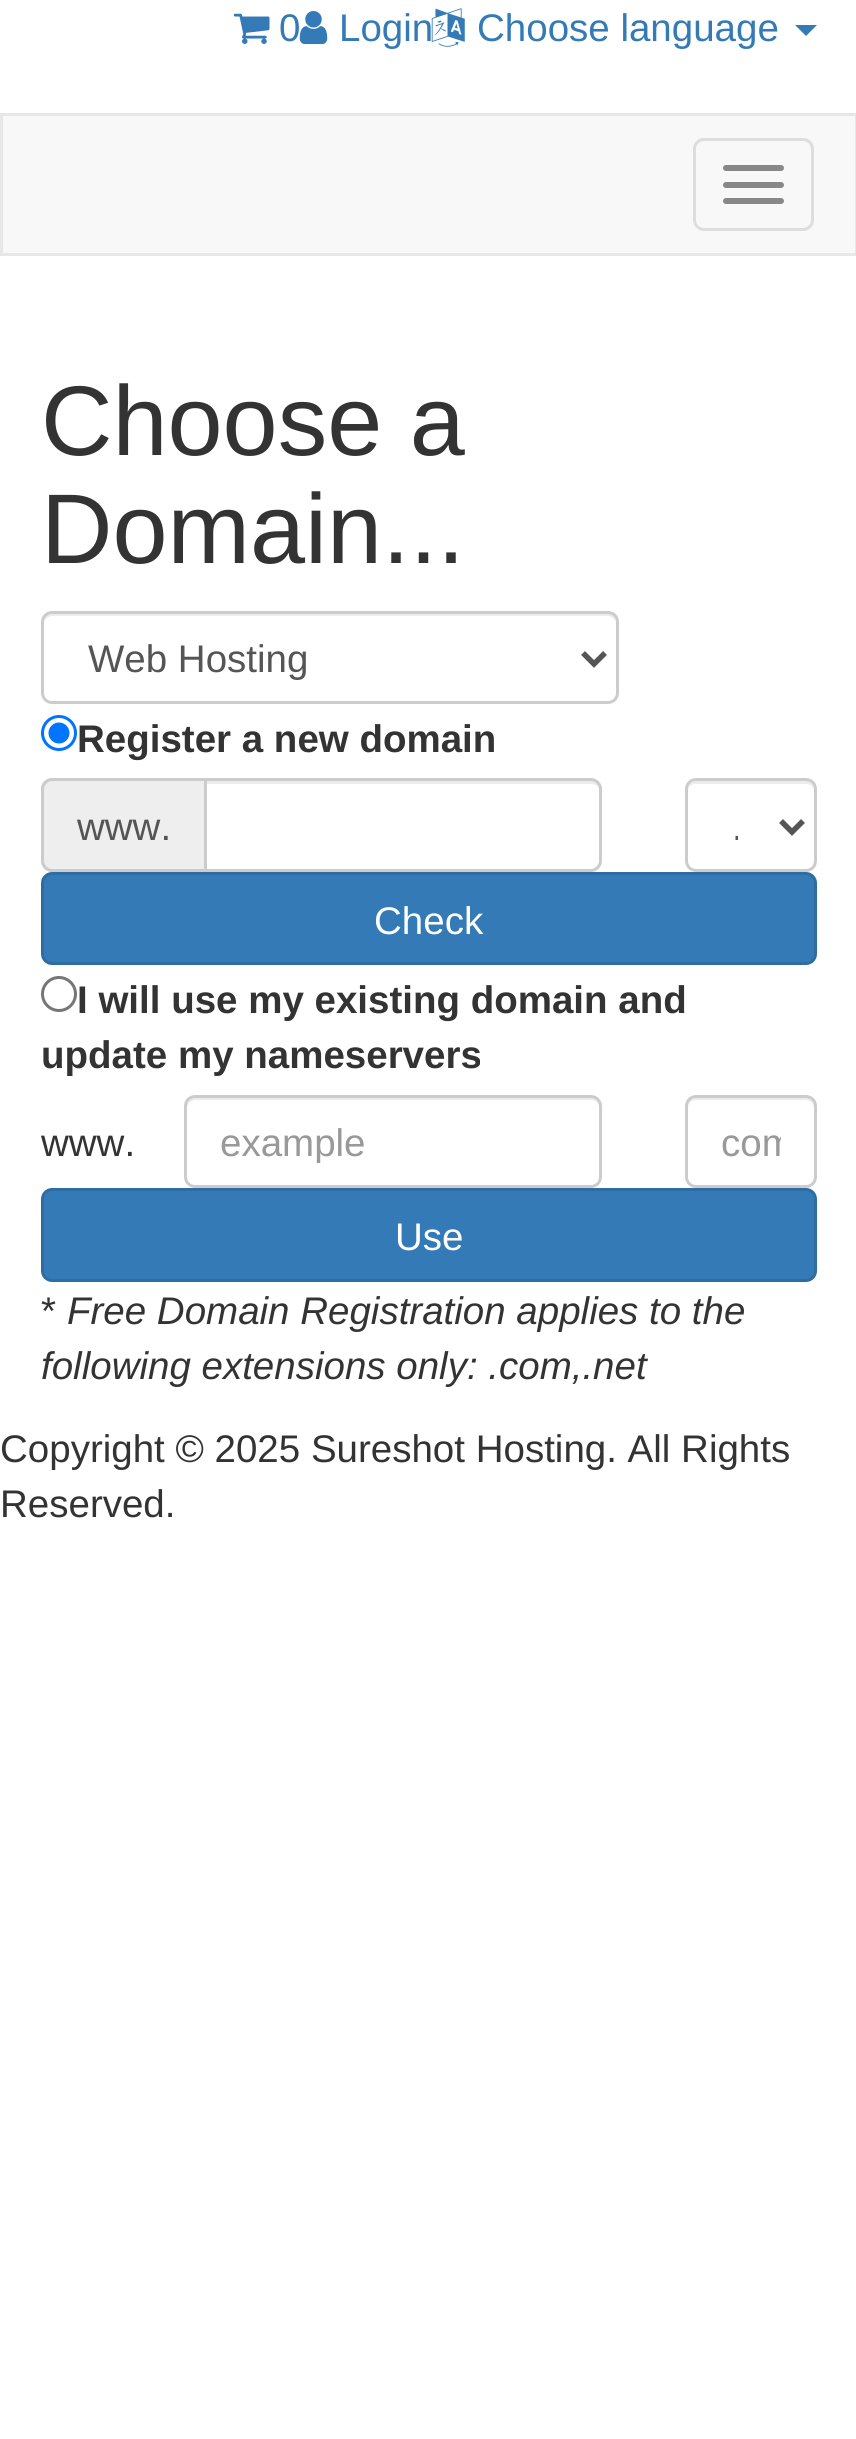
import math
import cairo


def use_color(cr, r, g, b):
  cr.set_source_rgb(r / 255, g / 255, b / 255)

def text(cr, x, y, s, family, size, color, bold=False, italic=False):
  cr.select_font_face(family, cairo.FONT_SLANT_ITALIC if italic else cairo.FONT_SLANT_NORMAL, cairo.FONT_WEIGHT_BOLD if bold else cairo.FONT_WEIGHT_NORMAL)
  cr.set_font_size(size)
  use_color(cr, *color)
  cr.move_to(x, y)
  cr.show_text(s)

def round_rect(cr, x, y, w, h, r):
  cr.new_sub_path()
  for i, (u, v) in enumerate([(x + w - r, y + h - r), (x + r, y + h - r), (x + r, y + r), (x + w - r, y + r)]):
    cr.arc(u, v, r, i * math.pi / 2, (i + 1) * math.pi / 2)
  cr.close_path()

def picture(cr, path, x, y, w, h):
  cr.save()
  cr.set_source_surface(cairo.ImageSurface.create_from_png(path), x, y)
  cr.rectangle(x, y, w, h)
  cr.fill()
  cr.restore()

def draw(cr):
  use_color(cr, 255, 255, 255)
  cr.paint()
  picture(cr, "img_01.png", 233, 13, 37, 31)
  picture(cr, "img_02.png", 299, 11, 29, 33)
  picture(cr, "img_03.png", 431, 8, 34, 39)
  use_color(cr, 51, 122, 183)
  cr.new_path()
  cr.move_to(795, 25)
  cr.line_to(817, 25)
  cr.line_to(806, 36)
  cr.close_path()
  cr.fill()
  use_color(cr, 248, 248, 248)
  cr.rectangle(1.5, 114.5, 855, 140)
  cr.fill_preserve()
  use_color(cr, 231, 231, 231)
  cr.set_line_width(3)
  cr.stroke()
  round_rect(cr, 694.5, 139.5, 118, 90, 9.5)
  use_color(cr, 221, 221, 221)
  cr.stroke()
  use_color(cr, 136, 136, 136)
  round_rect(cr, 723, 165, 61, 6, 3)
  cr.fill()
  round_rect(cr, 723, 182, 61, 6, 3)
  cr.fill()
  round_rect(cr, 723, 198, 61, 6, 3)
  cr.fill()
  use_color(cr, 236, 236, 236)
  cr.new_path()
  cr.move_to(52, 616)
  cr.line_to(608, 616)
  cr.curve_to(612, 616, 616, 620, 616, 624)
  cr.curve_to(616, 619, 614, 613, 608, 613)
  cr.line_to(52, 613)
  cr.curve_to(46, 613, 44, 619, 44, 624)
  cr.curve_to(44, 620, 48, 616, 52, 616)
  cr.close_path()
  cr.fill()
  round_rect(cr, 42.5, 612.5, 575, 90, 9.5)
  use_color(cr, 204, 204, 204)
  cr.stroke()
  cr.new_path()
  cr.move_to(583, 653)
  cr.line_to(594, 664)
  cr.line_to(605, 653)
  use_color(cr, 85, 85, 85)
  cr.set_line_width(5.5)
  cr.stroke()
  cr.arc(59, 733, 16.5, 0, 2 * math.pi)
  use_color(cr, 0, 117, 255)
  cr.set_line_width(3)
  cr.stroke()
  cr.arc(59, 733, 10.5, 0, 2 * math.pi)
  cr.fill()
  use_color(cr, 238, 238, 238)
  cr.new_path()
  cr.move_to(52, 778)
  cr.line_to(204, 778)
  cr.line_to(204, 872)
  cr.line_to(52, 872)
  cr.curve_to(46, 872, 41, 867, 41, 861)
  cr.line_to(41, 789)
  cr.curve_to(41, 783, 46, 778, 52, 778)
  cr.close_path()
  cr.fill()
  use_color(cr, 204, 204, 204)
  cr.set_fill_rule(cairo.FILL_RULE_EVEN_ODD)
  cr.new_path()
  cr.move_to(52, 778)
  cr.line_to(204, 778)
  cr.line_to(204, 872)
  cr.line_to(52, 872)
  cr.curve_to(46, 872, 41, 867, 41, 861)
  cr.line_to(41, 789)
  cr.curve_to(41, 783, 46, 778, 52, 778)
  cr.close_path()
  cr.move_to(52, 781)
  cr.line_to(204, 781)
  cr.line_to(204, 869)
  cr.line_to(52, 869)
  cr.curve_to(48, 869, 44, 865, 44, 861)
  cr.line_to(44, 789)
  cr.curve_to(44, 785, 48, 781, 52, 781)
  cr.close_path()
  cr.fill()
  use_color(cr, 236, 236, 236)
  cr.set_fill_rule(cairo.FILL_RULE_WINDING)
  cr.new_path()
  cr.move_to(206, 784)
  cr.line_to(591, 784)
  cr.curve_to(596, 784, 600, 787, 600, 792)
  cr.curve_to(600, 787, 598, 781, 592, 781)
  cr.line_to(206, 781)
  cr.close_path()
  cr.fill()
  cr.new_path()
  cr.move_to(205.5, 779.5)
  cr.line_to(591, 779.5)
  cr.curve_to(596, 779.5, 600.5, 784, 600.5, 789)
  cr.line_to(600.5, 861)
  cr.curve_to(600.5, 866, 596, 870.5, 591, 870.5)
  cr.line_to(205.5, 870.5)
  cr.close_path()
  use_color(cr, 204, 204, 204)
  cr.stroke()
  use_color(cr, 236, 236, 236)
  cr.new_path()
  cr.move_to(696, 784)
  cr.line_to(806, 784)
  cr.curve_to(810, 784, 814, 787, 814, 792)
  cr.curve_to(814, 776, 801, 781, 788, 781)
  cr.line_to(714, 781)
  cr.curve_to(701, 781, 688, 776, 688, 792)
  cr.curve_to(688, 787, 691, 784, 696, 784)
  cr.close_path()
  cr.fill()
  round_rect(cr, 686.5, 779.5, 129, 91, 9.5)
  use_color(cr, 204, 204, 204)
  cr.stroke()
  cr.new_path()
  cr.move_to(781, 821)
  cr.line_to(792, 832)
  cr.line_to(803, 821)
  use_color(cr, 85, 85, 85)
  cr.set_line_width(5.5)
  cr.stroke()
  use_color(cr, 51, 122, 183)
  round_rect(cr, 42.5, 873.5, 773, 90, 9.5)
  cr.fill_preserve()
  use_color(cr, 46, 109, 164)
  cr.set_line_width(3)
  cr.stroke()
  cr.arc(59, 994, 16.5, 0, 2 * math.pi)
  use_color(cr, 118, 118, 118)
  cr.stroke()
  use_color(cr, 236, 236, 236)
  cr.new_path()
  cr.move_to(195, 1100)
  cr.line_to(591, 1100)
  cr.curve_to(596, 1100, 600, 1104, 600, 1108)
  cr.line_to(600, 1105)
  cr.curve_to(600, 1101, 596, 1097, 592, 1097)
  cr.line_to(195, 1097)
  cr.curve_to(191, 1097, 187, 1101, 187, 1105)
  cr.line_to(187, 1108)
  cr.curve_to(187, 1104, 191, 1100, 195, 1100)
  cr.close_path()
  cr.fill()
  round_rect(cr, 185.5, 1096.5, 415, 90, 9.5)
  use_color(cr, 204, 204, 204)
  cr.stroke()
  use_color(cr, 236, 236, 236)
  cr.new_path()
  cr.move_to(696, 1100)
  cr.line_to(806, 1100)
  cr.curve_to(810, 1100, 814, 1104, 814, 1108)
  cr.curve_to(814, 1092, 801, 1097, 788, 1097)
  cr.line_to(714, 1097)
  cr.curve_to(701, 1097, 688, 1092, 688, 1108)
  cr.curve_to(688, 1104, 691, 1100, 696, 1100)
  cr.close_path()
  cr.fill()
  round_rect(cr, 686.5, 1096.5, 129, 90, 9.5)
  use_color(cr, 204, 204, 204)
  cr.stroke()
  use_color(cr, 51, 122, 183)
  round_rect(cr, 42.5, 1189.5, 773, 91, 9.5)
  cr.fill_preserve()
  use_color(cr, 46, 109, 164)
  cr.stroke()
  text(cr, 279, 41, "0", "Liberation Sans", 38.5, (51, 122, 183))
  text(cr, 339, 41, "Login", "Liberation Sans", 38.5, (51, 122, 183))
  text(cr, 477, 41, "Choose language", "Liberation Sans", 38.5, (51, 122, 183))
  text(cr, 41, 455, "Choose a", "Liberation Sans", 99, (51, 51, 51))
  text(cr, 41, 563, "Domain...", "Liberation Sans", 99, (51, 51, 51))
  text(cr, 88, 672, "Web Hosting", "Liberation Sans", 38.5, (85, 85, 85))
  text(cr, 77, 752, "Register a new domain", "Liberation Sans", 38.5, (51, 51, 51), bold=True)
  text(cr, 77, 840, "www.", "Liberation Sans", 38.5, (85, 85, 85))
  cr.save()
  cr.rectangle(732, 800, 6, 50)
  cr.clip()
  text(cr, 732, 840, ".", "Liberation Sans", 38.5, (85, 85, 85))
  cr.restore()
  text(cr, 374, 934, "Check", "Liberation Sans", 38.5, (255, 255, 255))
  text(cr, 77, 1013, "I will use my existing domain and", "Liberation Sans", 38.5, (51, 51, 51), bold=True)
  text(cr, 41, 1068, "update my nameservers", "Liberation Sans", 38.5, (51, 51, 51), bold=True)
  text(cr, 41, 1156, "www.", "Liberation Sans", 38.5, (51, 51, 51))
  cr.save()
  cr.rectangle(220, 1119, 347, 44)
  cr.clip()
  text(cr, 220, 1156, "example", "Liberation Sans", 38.5, (153, 153, 153))
  cr.restore()
  cr.save()
  cr.rectangle(721, 1119, 60, 44)
  cr.clip()
  text(cr, 721, 1156, "com", "Liberation Sans", 38.5, (153, 153, 153))
  cr.restore()
  text(cr, 395, 1250, "Use", "Liberation Sans", 38.5, (255, 255, 255))
  text(cr, 41, 1324, "*", "Liberation Sans", 38.5, (51, 51, 51))
  text(cr, 67, 1324, "Free Domain Registration applies to the", "Liberation Sans", 38.5, (51, 51, 51), italic=True)
  text(cr, 41, 1379, "following extensions only: .com,.net", "Liberation Sans", 38.5, (51, 51, 51), italic=True)
  text(cr, 0, 1462, "Copyright © 2025 Sureshot Hosting. All Rights", "Liberation Sans", 38.5, (51, 51, 51))
  text(cr, 0, 1517, "Reserved.", "Liberation Sans", 38.5, (51, 51, 51))


surface = cairo.ImageSurface(cairo.FORMAT_RGB24, 856, 2439)
cr = cairo.Context(surface)
options = cairo.FontOptions()
options.set_hint_metrics(cairo.HINT_METRICS_OFF)
options.set_hint_style(cairo.HINT_STYLE_NONE)
cr.set_font_options(options)
cr.set_miter_limit(4)
draw(cr)
surface.write_to_png("out.png")
